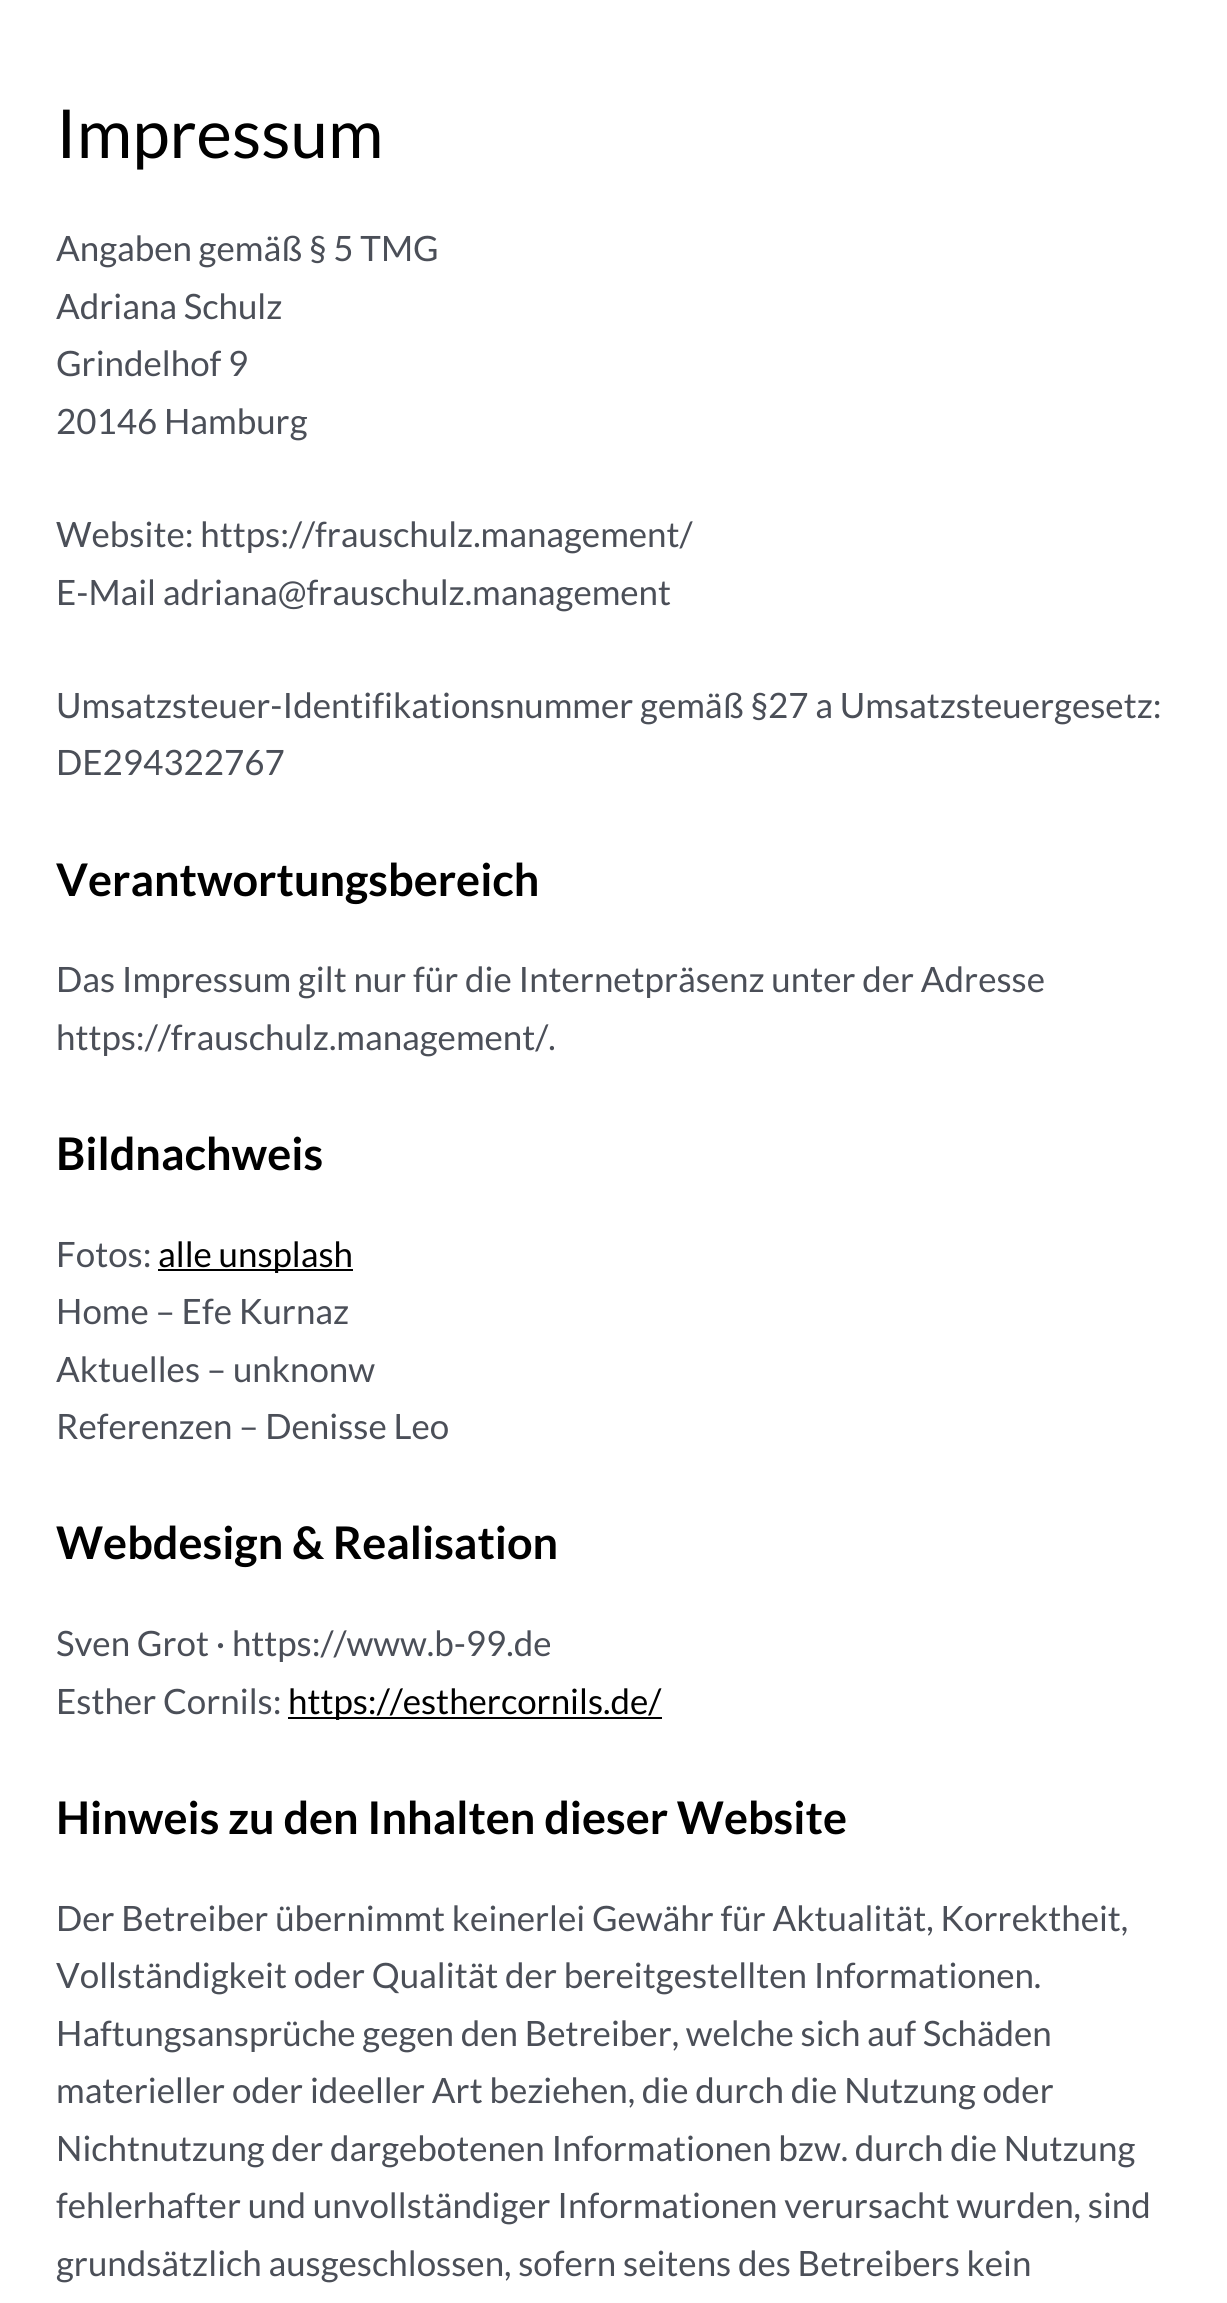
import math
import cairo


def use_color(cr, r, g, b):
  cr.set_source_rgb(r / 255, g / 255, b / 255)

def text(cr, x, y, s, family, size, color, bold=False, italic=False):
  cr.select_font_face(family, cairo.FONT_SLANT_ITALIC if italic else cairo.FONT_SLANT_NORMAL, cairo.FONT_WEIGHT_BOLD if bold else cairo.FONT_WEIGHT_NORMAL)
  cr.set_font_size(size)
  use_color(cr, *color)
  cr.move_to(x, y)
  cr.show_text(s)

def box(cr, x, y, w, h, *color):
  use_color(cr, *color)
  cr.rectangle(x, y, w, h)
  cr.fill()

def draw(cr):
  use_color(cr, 255, 255, 255)
  cr.paint()
  box(cr, 158, 1269, 195, 2, 0, 0, 0)
  box(cr, 288, 1717, 374, 2, 0, 0, 0)
  text(cr, 56, 158, "Impressum", "Lato", 67.5, (0, 0, 0))
  text(cr, 56, 261, "Angaben gemäß § 5 TMG", "Lato", 34.9, (75, 79, 88))
  text(cr, 56, 319, "Adriana Schulz", "Lato", 34.9, (75, 79, 88))
  text(cr, 56, 376, "Grindelhof 9", "Lato", 34.9, (75, 79, 88))
  text(cr, 56, 434, "20146 Hamburg", "Lato", 34.9, (75, 79, 88))
  text(cr, 56, 547, "Website: https://frauschulz.management/", "Lato", 34.9, (75, 79, 88))
  text(cr, 56, 605, "E-Mail adriana@frauschulz.management", "Lato", 34.9, (75, 79, 88))
  text(cr, 56, 718, "Umsatzsteuer-Identifikationsnummer gemäß §27 a Umsatzsteuergesetz:", "Lato", 34.9, (75, 79, 88))
  text(cr, 56, 775, "DE294322767", "Lato", 34.9, (75, 79, 88))
  text(cr, 56, 896, "Verantwortungsbereich", "Lato", 45, (0, 0, 0), bold=True)
  text(cr, 56, 992, "Das Impressum gilt nur für die Internetpräsenz unter der Adresse", "Lato", 34.9, (75, 79, 88))
  text(cr, 56, 1050, "https://frauschulz.management/.", "Lato", 34.9, (75, 79, 88))
  text(cr, 56, 1170, "Bildnachweis", "Lato", 45, (0, 0, 0), bold=True)
  text(cr, 56, 1267, "Fotos:", "Lato", 34.9, (75, 79, 88))
  text(cr, 158, 1267, "alle unsplash", "Lato", 34.9, (0, 0, 0))
  text(cr, 56, 1324, "Home – Efe Kurnaz", "Lato", 34.9, (75, 79, 88))
  text(cr, 56, 1382, "Aktuelles – unknonw", "Lato", 34.9, (75, 79, 88))
  text(cr, 56, 1439, "Referenzen – Denisse Leo", "Lato", 34.9, (75, 79, 88))
  text(cr, 56, 1559, "Webdesign & Realisation", "Lato", 45, (0, 0, 0), bold=True)
  text(cr, 56, 1656, "Sven Grot · https://www.b-99.de", "Lato", 34.9, (75, 79, 88))
  text(cr, 56, 1714, "Esther Cornils:", "Lato", 34.9, (75, 79, 88))
  text(cr, 288, 1714, "https://esthercornils.de/", "Lato", 34.9, (0, 0, 0))
  text(cr, 56, 1834, "Hinweis zu den Inhalten dieser Website", "Lato", 45, (0, 0, 0), bold=True)
  text(cr, 56, 1931, "Der Betreiber übernimmt keinerlei Gewähr für Aktualität, Korrektheit,", "Lato", 34.9, (75, 79, 88))
  text(cr, 56, 1988, "Vollständigkeit oder Qualität der bereitgestellten Informationen.", "Lato", 34.9, (75, 79, 88))
  text(cr, 56, 2046, "Haftungsansprüche gegen den Betreiber, welche sich auf Schäden", "Lato", 34.9, (75, 79, 88))
  text(cr, 56, 2103, "materieller oder ideeller Art beziehen, die durch die Nutzung oder", "Lato", 34.9, (75, 79, 88))
  text(cr, 56, 2161, "Nichtnutzung der dargebotenen Informationen bzw. durch die Nutzung", "Lato", 34.9, (75, 79, 88))
  text(cr, 56, 2218, "fehlerhafter und unvollständiger Informationen verursacht wurden, sind", "Lato", 34.9, (75, 79, 88))
  text(cr, 56, 2276, "grundsätzlich ausgeschlossen, sofern seitens des Betreibers kein", "Lato", 34.9, (75, 79, 88))


surface = cairo.ImageSurface(cairo.FORMAT_RGB24, 1227, 2303)
cr = cairo.Context(surface)
options = cairo.FontOptions()
options.set_hint_metrics(cairo.HINT_METRICS_OFF)
options.set_hint_style(cairo.HINT_STYLE_NONE)
cr.set_font_options(options)
cr.set_miter_limit(4)
draw(cr)
surface.write_to_png("out.png")
